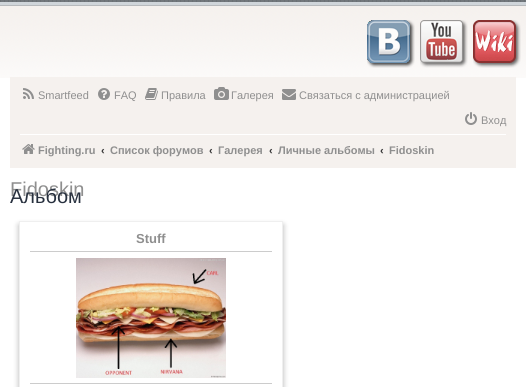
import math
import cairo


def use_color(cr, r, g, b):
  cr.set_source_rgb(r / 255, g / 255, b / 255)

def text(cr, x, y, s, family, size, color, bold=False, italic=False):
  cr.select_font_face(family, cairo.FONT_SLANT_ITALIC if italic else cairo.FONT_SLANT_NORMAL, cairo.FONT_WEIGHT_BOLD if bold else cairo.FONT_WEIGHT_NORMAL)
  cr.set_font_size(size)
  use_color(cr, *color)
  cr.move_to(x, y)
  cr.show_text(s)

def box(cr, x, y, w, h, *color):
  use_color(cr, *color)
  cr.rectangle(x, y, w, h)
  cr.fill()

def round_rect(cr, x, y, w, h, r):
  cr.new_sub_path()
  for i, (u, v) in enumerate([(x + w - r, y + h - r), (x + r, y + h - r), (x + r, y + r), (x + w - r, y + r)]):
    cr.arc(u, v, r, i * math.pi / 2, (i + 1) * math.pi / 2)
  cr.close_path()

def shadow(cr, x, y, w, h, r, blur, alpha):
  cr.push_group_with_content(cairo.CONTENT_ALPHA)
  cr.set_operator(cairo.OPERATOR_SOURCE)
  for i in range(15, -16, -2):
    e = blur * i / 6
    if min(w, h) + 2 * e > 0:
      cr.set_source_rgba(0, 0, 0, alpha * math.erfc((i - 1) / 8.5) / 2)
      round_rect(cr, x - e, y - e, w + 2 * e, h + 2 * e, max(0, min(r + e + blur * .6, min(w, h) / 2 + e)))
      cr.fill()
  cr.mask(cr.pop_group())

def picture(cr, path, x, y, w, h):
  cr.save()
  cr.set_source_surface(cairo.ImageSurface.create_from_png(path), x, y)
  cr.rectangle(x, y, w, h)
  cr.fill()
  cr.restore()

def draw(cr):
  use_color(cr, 255, 255, 255)
  cr.paint()
  picture(cr, "img_01.png", 0, 0, 526, 78)
  picture(cr, "img_02.png", 367, 20, 48, 48)
  picture(cr, "img_03.png", 420, 20, 48, 48)
  picture(cr, "img_04.png", 473, 20, 48, 48)
  box(cr, 10, 77, 506, 91, 245, 241, 238)
  picture(cr, "img_05.png", 23, 88, 11, 11)
  picture(cr, "img_06.png", 98, 88, 12, 12)
  picture(cr, "img_07.png", 145, 88, 13, 12)
  picture(cr, "img_08.png", 214, 87, 15, 13)
  picture(cr, "img_09.png", 282, 89, 14, 11)
  picture(cr, "img_10.png", 465, 112, 12, 13)
  box(cr, 20, 134, 486, 1, 255, 255, 255)
  picture(cr, "img_11.png", 22, 144, 13, 10)
  cr.save()
  cr.set_fill_rule(cairo.FILL_RULE_EVEN_ODD)
  cr.new_path()
  cr.move_to(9, 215)
  cr.line_to(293, 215)
  cr.line_to(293, 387)
  cr.line_to(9, 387)
  cr.close_path()
  cr.move_to(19, 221)
  cr.line_to(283, 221)
  cr.line_to(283, 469)
  cr.line_to(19, 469)
  cr.close_path()
  cr.clip()
  use_color(cr, 0, 0, 0)
  shadow(cr, 19, 225, 264, 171, 0, 3, 0.3)
  cr.restore()
  cr.rectangle(19.5, 221.5, 263, 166)
  use_color(cr, 239, 239, 239)
  cr.set_line_width(1)
  cr.stroke()
  box(cr, 30, 251, 242, 1, 204, 204, 204)
  picture(cr, "img_12.png", 76, 258, 150, 120)
  box(cr, 30, 383, 242, 1, 204, 204, 204)
  text(cr, 38, 99, "Smartfeed", "Liberation Sans", 11, (143, 143, 143))
  text(cr, 114, 99, "FAQ", "Liberation Sans", 11, (143, 143, 143))
  text(cr, 161, 99, "Правила", "Liberation Sans", 11, (143, 143, 143))
  text(cr, 231, 99, "Галерея", "Liberation Sans", 11, (143, 143, 143))
  text(cr, 299, 99, "Связаться с администрацией", "Liberation Sans", 11, (143, 143, 143))
  text(cr, 481, 124, "Вход", "Liberation Sans", 11, (143, 143, 143))
  text(cr, 38, 154, "Fighting.ru", "Liberation Sans", 11, (143, 143, 143), bold=True)
  text(cr, 101, 154, "‹", "Liberation Sans", 11, (51, 51, 51), bold=True)
  text(cr, 110, 154, "Список форумов", "Liberation Sans", 11, (143, 143, 143), bold=True)
  text(cr, 209, 154, "‹", "Liberation Sans", 11, (51, 51, 51), bold=True)
  text(cr, 218, 154, "Галерея", "Liberation Sans", 11, (143, 143, 143), bold=True)
  text(cr, 269, 154, "‹", "Liberation Sans", 11, (51, 51, 51), bold=True)
  text(cr, 278, 154, "Личные альбомы", "Liberation Sans", 11, (143, 143, 143), bold=True)
  text(cr, 380, 154, "‹", "Liberation Sans", 11, (51, 51, 51), bold=True)
  text(cr, 389, 154, "Fidoskin", "Liberation Sans", 11, (143, 143, 143), bold=True)
  text(cr, 10, 196, "Fidoskin", "Liberation Sans", 20, (143, 143, 143))
  text(cr, 10, 203, "Альбом", "Liberation Sans", 20, (40, 49, 63))
  text(cr, 136, 243, "Stuff", "Liberation Sans", 13, (143, 143, 143), bold=True)


surface = cairo.ImageSurface(cairo.FORMAT_RGB24, 526, 387)
cr = cairo.Context(surface)
options = cairo.FontOptions()
options.set_hint_metrics(cairo.HINT_METRICS_OFF)
options.set_hint_style(cairo.HINT_STYLE_NONE)
cr.set_font_options(options)
cr.set_miter_limit(4)
draw(cr)
surface.write_to_png("out.png")
